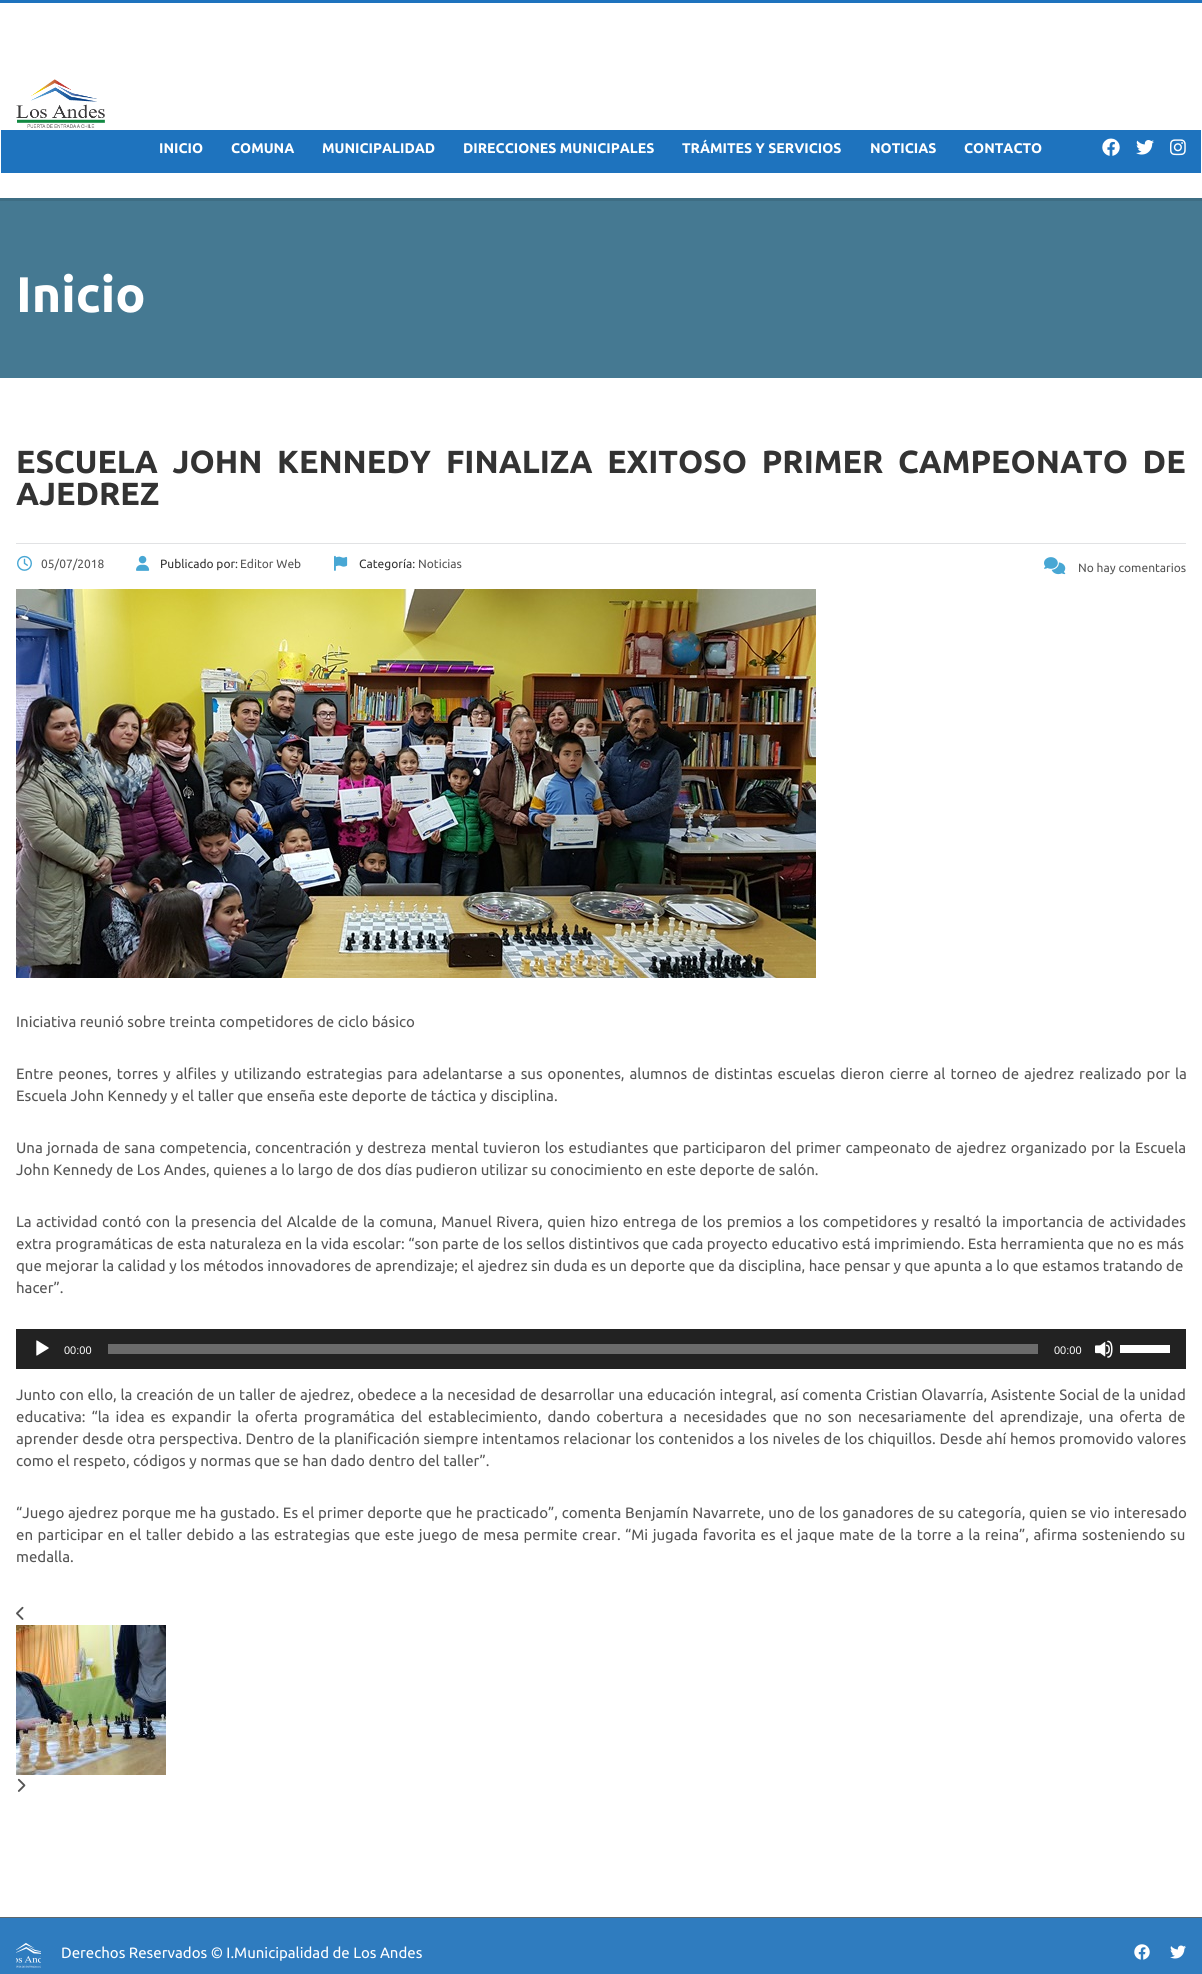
import math
import cairo


def use_color(cr, r, g, b):
  cr.set_source_rgb(r / 255, g / 255, b / 255)

def text(cr, x, y, s, family, size, color, bold=False, italic=False):
  cr.select_font_face(family, cairo.FONT_SLANT_ITALIC if italic else cairo.FONT_SLANT_NORMAL, cairo.FONT_WEIGHT_BOLD if bold else cairo.FONT_WEIGHT_NORMAL)
  cr.set_font_size(size)
  use_color(cr, *color)
  cr.move_to(x, y)
  cr.show_text(s)

def spaced_text(cr, x, y, s, letter, word):
  cr.move_to(x, y)
  for ch in s:
    cr.show_text(ch)
    cr.rel_move_to(letter + word * (ch == ' '), 0)

def box(cr, x, y, w, h, *color):
  use_color(cr, *color)
  cr.rectangle(x, y, w, h)
  cr.fill()

def picture(cr, path, x, y, w, h):
  cr.save()
  cr.set_source_surface(cairo.ImageSurface.create_from_png(path), x, y)
  cr.rectangle(x, y, w, h)
  cr.fill()
  cr.restore()

def draw(cr):
  use_color(cr, 255, 255, 255)
  cr.paint()
  box(cr, 0, 0, 1202, 3, 30, 115, 190)
  picture(cr, "img_01.png", 16, 79, 89, 49)
  box(cr, 1, 130, 1200, 43, 30, 115, 190)
  picture(cr, "img_02.png", 1102, 138, 18, 18)
  picture(cr, "img_03.png", 1136, 140, 18, 15)
  picture(cr, "img_04.png", 1170, 139, 16, 17)
  box(cr, 0, 198, 1202, 3, 62, 109, 131)
  box(cr, 0, 201, 1202, 177, 69, 121, 146)
  box(cr, 16, 543, 1170, 1, 225, 226, 228)
  picture(cr, "img_05.png", 17, 555, 15, 16)
  picture(cr, "img_06.png", 136, 555, 14, 16)
  picture(cr, "img_07.png", 334, 555, 14, 16)
  picture(cr, "img_08.png", 1044, 557, 22, 18)
  picture(cr, "img_09.png", 16, 589, 800, 389)
  box(cr, 16, 1329, 1170, 40, 34, 34, 34)
  picture(cr, "img_10.png", 36, 1340, 13, 16)
  box(cr, 108, 1344, 930, 10, 107, 107, 107)
  picture(cr, "img_11.png", 1095, 1340, 18, 18)
  box(cr, 1120, 1345, 50, 8, 255, 255, 255)
  picture(cr, "img_12.png", 16, 1606, 8, 14)
  picture(cr, "img_13.png", 16, 1625, 150, 150)
  picture(cr, "img_14.png", 17, 1778, 9, 14)
  box(cr, 0, 1918, 1202, 56, 47, 124, 191)
  box(cr, 0, 1917, 1202, 1, 94, 103, 107)
  picture(cr, "img_15.png", 16, 1943, 25, 25)
  picture(cr, "img_16.png", 1134, 1944, 16, 16)
  picture(cr, "img_17.png", 1170, 1945, 16, 14)
  text(cr, 159, 153, "INICIO", "Ubuntu", 14, (255, 255, 255), bold=True)
  text(cr, 231, 153, "COMUNA", "Ubuntu", 14, (255, 255, 255), bold=True)
  text(cr, 322, 153, "MUNICIPALIDAD", "Ubuntu", 14, (255, 255, 255), bold=True)
  text(cr, 463, 153, "DIRECCIONES MUNICIPALES", "Ubuntu", 14, (255, 255, 255), bold=True)
  text(cr, 682, 153, "TRÁMITES Y SERVICIOS", "Ubuntu", 14, (255, 255, 255), bold=True)
  text(cr, 870, 153, "NOTICIAS", "Ubuntu", 14, (255, 255, 255), bold=True)
  text(cr, 964, 153, "CONTACTO", "Ubuntu", 14, (255, 255, 255), bold=True)
  text(cr, 16, 312, "Inicio", "Ubuntu", 50, (255, 255, 255), bold=True)
  cr.set_font_size(32)
  use_color(cr, 51, 51, 51)
  spaced_text(cr, 16, 473, "ESCUELA JOHN KENNEDY", 0, 7)
  spaced_text(cr, 446, 473, "FINALIZA EXITOSO PRIMER CAMPEONATO DE", 0, 7)
  text(cr, 16, 505, "AJEDREZ", "Ubuntu", 32, (51, 51, 51), bold=True)
  text(cr, 41, 568, "05/07/2018", "Ubuntu", 12, (85, 85, 85))
  text(cr, 160, 568, "Publicado por:", "Ubuntu", 12, (51, 51, 51))
  text(cr, 240, 568, "Editor Web", "Ubuntu", 12, (85, 85, 85))
  text(cr, 359, 568, "Categoría:", "Ubuntu", 12, (51, 51, 51))
  text(cr, 418, 568, "Noticias", "Ubuntu", 12, (85, 85, 85))
  text(cr, 1078, 572, "No hay comentarios", "Ubuntu", 12, (85, 85, 85))
  text(cr, 16, 1027, "Iniciativa reunió sobre treinta competidores de ciclo básico", "Ubuntu", 15, (85, 85, 85))
  spaced_text(cr, 16, 1079, "Entre peones, torres y alfiles y utilizando estrategias para adelantarse a sus oponentes, alumnos de distintas escuelas dieron cierre al torneo de ajedrez realizado por la", 0, 1.5)
  text(cr, 16, 1101, "Escuela John Kennedy y el taller que enseña este deporte de táctica y disciplina.", "Ubuntu", 15, (85, 85, 85))
  spaced_text(cr, 16, 1153, "Una jornada de sana competencia, concentración y destreza mental tuvieron los estudiantes que participaron del primer campeonato de ajedrez organizado por la Escuela", 0, 0.8)
  text(cr, 16, 1175, "John Kennedy de Los Andes, quienes a lo largo de dos días pudieron utilizar su conocimiento en este deporte de salón.", "Ubuntu", 15, (85, 85, 85))
  spaced_text(cr, 16, 1227, "La actividad contó con la presencia del Alcalde de la comuna, Manuel Rivera, quien hizo entrega de los premios a los competidores y resaltó la importancia de actividades", 0, 1)
  text(cr, 16, 1249, "extra programáticas de esta naturaleza en la vida escolar: “son parte de los sellos distintivos que cada proyecto educativo está imprimiendo. Esta herramienta que no es más", "Ubuntu", 15, (85, 85, 85))
  text(cr, 16, 1271, "que mejorar la calidad y los métodos innovadores de aprendizaje; el ajedrez sin duda es un deporte que da disciplina, hace pensar y que apunta a lo que estamos tratando de", "Ubuntu", 15, (85, 85, 85))
  text(cr, 16, 1293, "hacer”.", "Ubuntu", 15, (85, 85, 85))
  text(cr, 64, 1354, "00:00", "Liberation Sans", 11, (255, 255, 255))
  text(cr, 1054, 1354, "00:00", "Liberation Sans", 11, (255, 255, 255))
  cr.select_font_face("Ubuntu")
  cr.set_font_size(15)
  use_color(cr, 85, 85, 85)
  spaced_text(cr, 16, 1400, "Junto con ello, la creación de un taller de ajedrez, obedece a la necesidad de desarrollar una educación integral, así comenta Cristian Olavarría, Asistente Social de la unidad", 0, 0.3)
  spaced_text(cr, 16, 1422, "educativa: “la idea es expandir la oferta programática del establecimiento, dando cobertura a necesidades que no son necesariamente del aprendizaje, una oferta de", 0, 2.5)
  spaced_text(cr, 16, 1444, "aprender desde otra perspectiva. Dentro de la planificación siempre intentamos relacionar los contenidos a los niveles de los chiquillos. Desde ahí hemos promovido valores", 0, 0.2)
  text(cr, 16, 1466, "como el respeto, códigos y normas que se han dado dentro del taller”.", "Ubuntu", 15, (85, 85, 85))
  spaced_text(cr, 16, 1518, "“Juego ajedrez porque me ha gustado. Es el primer deporte que he practicado”, comenta Benjamín Navarrete, uno de los ganadores de su categoría, quien se vio interesado", 0, 0.25)
  spaced_text(cr, 16, 1540, "en participar en el taller debido a las estrategias que este juego de mesa permite crear. “Mi jugada favorita es el jaque mate de la torre a la reina”, afirma sosteniendo su", 0, 1)
  text(cr, 16, 1562, "medalla.", "Ubuntu", 15, (85, 85, 85))
  text(cr, 61, 1958, "Derechos Reservados © I.Municipalidad de Los Andes", "Ubuntu", 15, (255, 255, 255))


surface = cairo.ImageSurface(cairo.FORMAT_RGB24, 1202, 1974)
cr = cairo.Context(surface)
options = cairo.FontOptions()
options.set_hint_metrics(cairo.HINT_METRICS_OFF)
options.set_hint_style(cairo.HINT_STYLE_NONE)
cr.set_font_options(options)
cr.set_miter_limit(4)
draw(cr)
surface.write_to_png("out.png")
